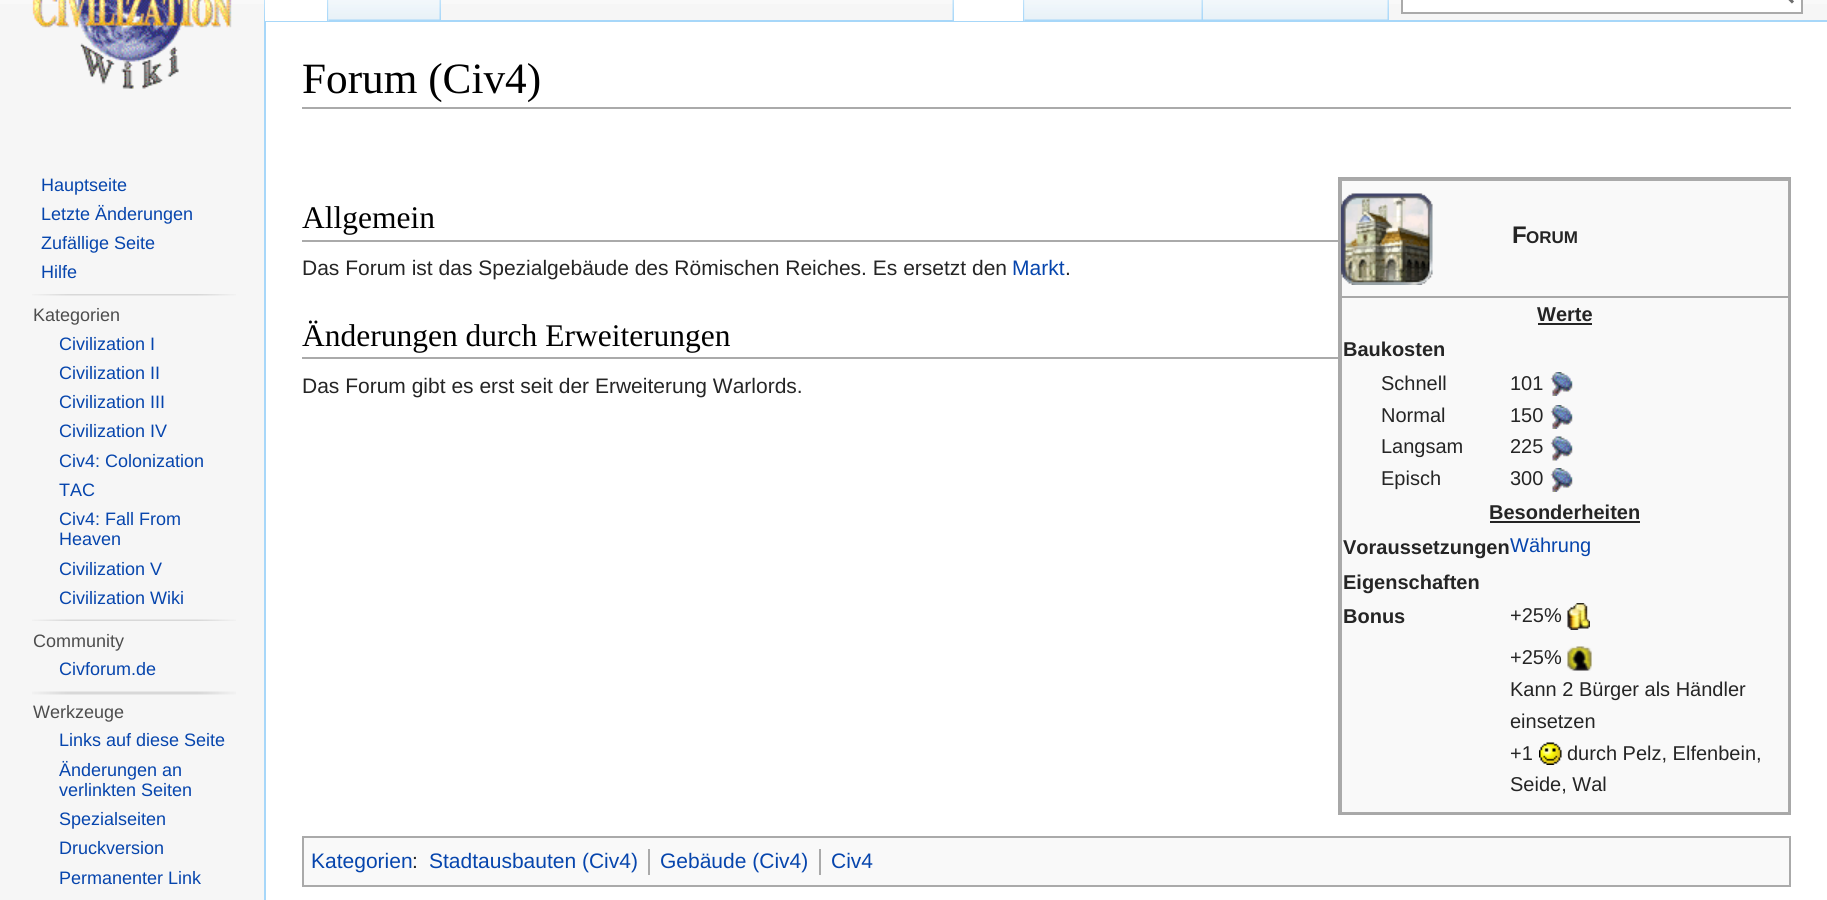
import math
import cairo


def use_color(cr, r, g, b):
  cr.set_source_rgb(r / 255, g / 255, b / 255)

def text(cr, x, y, s, family, size, color, bold=False, italic=False):
  cr.select_font_face(family, cairo.FONT_SLANT_ITALIC if italic else cairo.FONT_SLANT_NORMAL, cairo.FONT_WEIGHT_BOLD if bold else cairo.FONT_WEIGHT_NORMAL)
  cr.set_font_size(size)
  use_color(cr, *color)
  cr.move_to(x, y)
  cr.show_text(s)

def box(cr, x, y, w, h, *color):
  use_color(cr, *color)
  cr.rectangle(x, y, w, h)
  cr.fill()

def picture(cr, path, x, y, w, h):
  cr.save()
  cr.set_source_surface(cairo.ImageSurface.create_from_png(path), x, y)
  cr.rectangle(x, y, w, h)
  cr.fill()
  cr.restore()

def draw(cr):
  use_color(cr, 246, 246, 246)
  cr.paint()
  gradient = cairo.LinearGradient(914, -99, 914, 21)
  gradient.add_color_stop_rgba(0.5, 1, 1, 1, 1)
  gradient.add_color_stop_rgba(1, 0.965, 0.965, 0.965, 1)
  cr.set_source(gradient)
  cr.rectangle(0, 0, 1827, 4)
  cr.fill()
  picture(cr, "img_01.png", 264, 0, 1, 20)
  box(cr, 264, 20, 1563, 2, 167, 215, 249)
  box(cr, 264, 20, 2, 880, 167, 215, 249)
  box(cr, 265, 0, 64, 21, 255, 255, 255)
  picture(cr, "img_02.png", 327, 0, 2, 21)
  picture(cr, "img_03.png", 328, 0, 113, 21)
  picture(cr, "img_04.png", 439, 0, 2, 20)
  picture(cr, "img_05.png", 952, 0, 2, 20)
  box(cr, 954, 0, 71, 21, 255, 255, 255)
  picture(cr, "img_02.png", 1023, 0, 2, 21)
  picture(cr, "img_06.png", 1024, 0, 179, 21)
  picture(cr, "img_04.png", 1201, 0, 2, 20)
  picture(cr, "img_07.png", 1203, 0, 186, 21)
  picture(cr, "img_04.png", 1387, 0, 2, 20)
  cr.rectangle(1402, -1, 400, 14)
  cr.fill_preserve()
  use_color(cr, 170, 170, 170)
  cr.stroke()
  cr.new_path()
  cr.move_to(1793, 2.5)
  cr.line_to(1787, -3.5)
  use_color(cr, 108, 108, 108)
  cr.set_line_width(3)
  cr.stroke()
  picture(cr, "img_08.png", 32, 0, 200, 89)
  picture(cr, "img_09.png", 32, 294, 204, 2)
  picture(cr, "img_10.png", 32, 619, 204, 2)
  picture(cr, "img_11.png", 32, 691, 204, 4)
  box(cr, 266, 22, 1561, 878, 255, 255, 255)
  box(cr, 302, 107, 1489, 2, 170, 170, 170)
  box(cr, 302, 240, 1036, 2, 170, 170, 170)
  cr.rectangle(1339, 178, 451, 636)
  use_color(cr, 168, 168, 168)
  cr.set_line_width(2)
  cr.stroke()
  box(cr, 1342, 181, 446, 631, 249, 249, 249)
  box(cr, 1340, 179, 450, 2, 170, 170, 170)
  box(cr, 1788, 179, 1, 634, 170, 170, 170)
  box(cr, 1340, 812, 450, 1, 170, 170, 170)
  box(cr, 1340, 179, 2, 634, 170, 170, 170)
  picture(cr, "img_12.png", 1341, 193, 92, 92)
  box(cr, 1340, 296, 450, 2, 168, 168, 168)
  box(cr, 1538, 323, 54, 2, 37, 37, 37)
  picture(cr, "img_13.png", 1550, 372, 23, 24)
  picture(cr, "img_13.png", 1550, 405, 23, 24)
  picture(cr, "img_14.png", 1550, 436, 23, 25)
  picture(cr, "img_13.png", 1550, 468, 23, 24)
  box(cr, 1490, 521, 150, 2, 37, 37, 37)
  picture(cr, "img_15.png", 1567, 603, 23, 27)
  picture(cr, "img_16.png", 1567, 646, 25, 25)
  picture(cr, "img_17.png", 1539, 742, 23, 23)
  box(cr, 302, 357, 1036, 2, 170, 170, 170)
  use_color(cr, 249, 249, 249)
  cr.rectangle(303, 837, 1487, 49)
  cr.fill_preserve()
  use_color(cr, 170, 170, 170)
  cr.stroke()
  box(cr, 648, 849, 2, 26, 170, 170, 170)
  box(cr, 819, 849, 2, 26, 170, 170, 170)
  text(cr, 41, 191, "Hauptseite", "Liberation Sans", 18, (6, 69, 173))
  text(cr, 41, 220, "Letzte Änderungen", "Liberation Sans", 18, (6, 69, 173))
  text(cr, 41, 249, "Zufällige Seite", "Liberation Sans", 18, (6, 69, 173))
  text(cr, 41, 278, "Hilfe", "Liberation Sans", 18, (6, 69, 173))
  text(cr, 33, 321, "Kategorien", "Liberation Sans", 18, (77, 77, 77))
  text(cr, 59, 350, "Civilization I", "Liberation Sans", 18, (6, 69, 173))
  text(cr, 59, 379, "Civilization II", "Liberation Sans", 18, (6, 69, 173))
  text(cr, 59, 408, "Civilization III", "Liberation Sans", 18, (6, 69, 173))
  text(cr, 59, 437, "Civilization IV", "Liberation Sans", 18, (6, 69, 173))
  text(cr, 59, 467, "Civ4: Colonization", "Liberation Sans", 18, (6, 69, 173))
  text(cr, 59, 496, "TAC", "Liberation Sans", 18, (6, 69, 173))
  text(cr, 59, 525, "Civ4: Fall From", "Liberation Sans", 18, (6, 69, 173))
  text(cr, 59, 545, "Heaven", "Liberation Sans", 18, (6, 69, 173))
  text(cr, 59, 575, "Civilization V", "Liberation Sans", 18, (6, 69, 173))
  text(cr, 59, 604, "Civilization Wiki", "Liberation Sans", 18, (6, 69, 173))
  text(cr, 33, 647, "Community", "Liberation Sans", 18, (77, 77, 77))
  text(cr, 59, 675, "Civforum.de", "Liberation Sans", 18, (6, 69, 173))
  text(cr, 33, 718, "Werkzeuge", "Liberation Sans", 18, (77, 77, 77))
  text(cr, 59, 746, "Links auf diese Seite", "Liberation Sans", 18, (6, 69, 173))
  text(cr, 59, 776, "Änderungen an", "Liberation Sans", 18, (6, 69, 173))
  text(cr, 59, 796, "verlinkten Seiten", "Liberation Sans", 18, (6, 69, 173))
  text(cr, 59, 825, "Spezialseiten", "Liberation Sans", 18, (6, 69, 173))
  text(cr, 59, 854, "Druckversion", "Liberation Sans", 18, (6, 69, 173))
  text(cr, 59, 884, "Permanenter Link", "Liberation Sans", 18, (6, 69, 173))
  text(cr, 302, 93, "Forum (Civ4)", "Liberation Serif", 43.25, (0, 0, 0))
  text(cr, 302, 228, "Allgemein", "Liberation Serif", 31.5, (0, 0, 0))
  text(cr, 302, 275, "Das Forum ist das Spezialgebäude des Römischen Reiches. Es ersetzt den", "Liberation Sans", 21, (37, 37, 37))
  text(cr, 1012, 275, "Markt", "Liberation Sans", 21, (6, 69, 173))
  text(cr, 1065, 275, ".", "Liberation Sans", 21, (37, 37, 37))
  text(cr, 1512, 243, "F", "Liberation Sans", 24, (37, 37, 37), bold=True)
  text(cr, 1526, 243, "ORUM", "Liberation Sans", 17, (37, 37, 37), bold=True)
  text(cr, 1537, 321, "Werte", "Liberation Sans", 20, (37, 37, 37), bold=True)
  text(cr, 1343, 356, "Baukosten", "Liberation Sans", 20, (37, 37, 37), bold=True)
  text(cr, 1381, 390, "Schnell", "Liberation Sans", 20, (37, 37, 37))
  text(cr, 1510, 390, "101", "Liberation Sans", 20, (37, 37, 37))
  text(cr, 1381, 422, "Normal", "Liberation Sans", 20, (37, 37, 37))
  text(cr, 1510, 422, "150", "Liberation Sans", 20, (37, 37, 37))
  text(cr, 1381, 453, "Langsam", "Liberation Sans", 20, (37, 37, 37))
  text(cr, 1510, 453, "225", "Liberation Sans", 20, (37, 37, 37))
  text(cr, 1381, 485, "Episch", "Liberation Sans", 20, (37, 37, 37))
  text(cr, 1510, 485, "300", "Liberation Sans", 20, (37, 37, 37))
  text(cr, 1489, 519, "Besonderheiten", "Liberation Sans", 20, (37, 37, 37), bold=True)
  text(cr, 1343, 554, "Voraussetzungen", "Liberation Sans", 20, (37, 37, 37), bold=True)
  text(cr, 1510, 552, "Währung", "Liberation Sans", 20, (6, 69, 173))
  text(cr, 1343, 589, "Eigenschaften", "Liberation Sans", 20, (37, 37, 37), bold=True)
  text(cr, 1343, 623, "Bonus", "Liberation Sans", 20, (37, 37, 37), bold=True)
  text(cr, 1510, 622, "+25%", "Liberation Sans", 20, (37, 37, 37))
  text(cr, 1510, 664, "+25%", "Liberation Sans", 20, (37, 37, 37))
  text(cr, 1510, 696, "Kann 2 Bürger als Händler", "Liberation Sans", 20, (37, 37, 37))
  text(cr, 1510, 728, "einsetzen", "Liberation Sans", 20, (37, 37, 37))
  text(cr, 1510, 760, "+1", "Liberation Sans", 20, (37, 37, 37))
  text(cr, 1567, 760, "durch Pelz, Elfenbein,", "Liberation Sans", 20, (37, 37, 37))
  text(cr, 1510, 791, "Seide, Wal", "Liberation Sans", 20, (37, 37, 37))
  text(cr, 302, 346, "Änderungen durch Erweiterungen", "Liberation Serif", 31.5, (0, 0, 0))
  text(cr, 302, 393, "Das Forum gibt es erst seit der Erweiterung Warlords.", "Liberation Sans", 21, (37, 37, 37))
  text(cr, 311, 868, "Kategorien", "Liberation Sans", 21, (6, 69, 173))
  text(cr, 412, 868, ":", "Liberation Sans", 21, (37, 37, 37))
  text(cr, 429, 868, "Stadtausbauten (Civ4)", "Liberation Sans", 21, (6, 69, 173))
  text(cr, 660, 868, "Gebäude (Civ4)", "Liberation Sans", 21, (6, 69, 173))
  text(cr, 831, 868, "Civ4", "Liberation Sans", 21, (6, 69, 173))


surface = cairo.ImageSurface(cairo.FORMAT_RGB24, 1827, 900)
cr = cairo.Context(surface)
options = cairo.FontOptions()
options.set_hint_metrics(cairo.HINT_METRICS_OFF)
options.set_hint_style(cairo.HINT_STYLE_NONE)
cr.set_font_options(options)
cr.set_miter_limit(4)
draw(cr)
surface.write_to_png("out.png")
